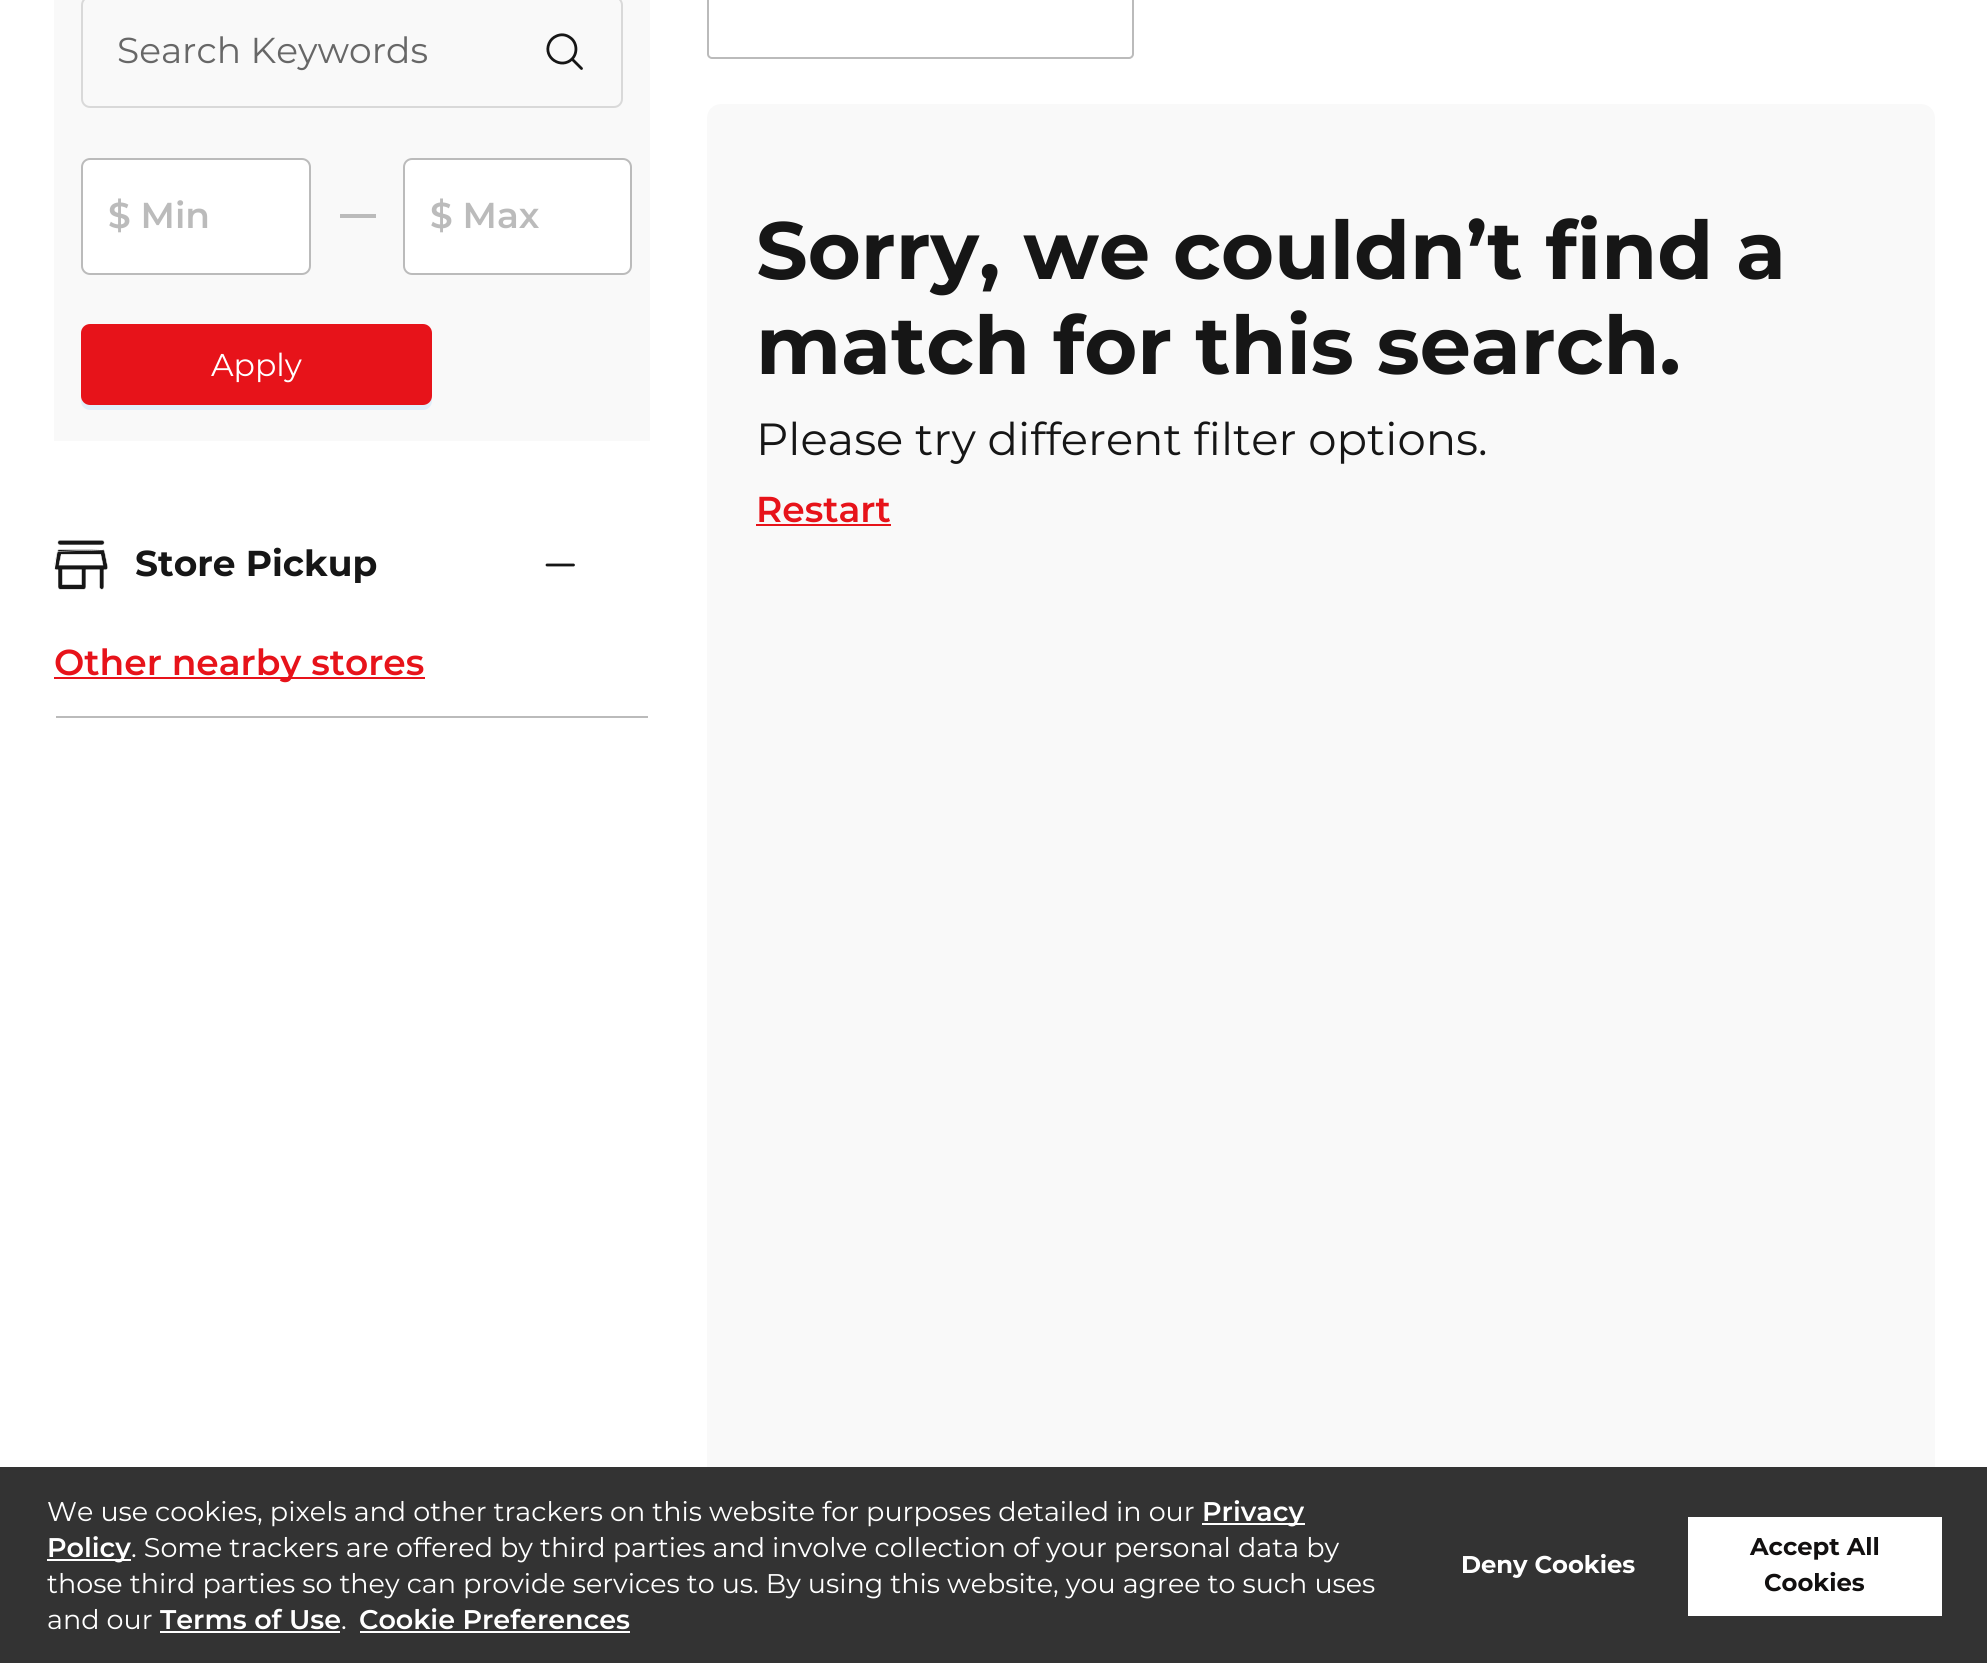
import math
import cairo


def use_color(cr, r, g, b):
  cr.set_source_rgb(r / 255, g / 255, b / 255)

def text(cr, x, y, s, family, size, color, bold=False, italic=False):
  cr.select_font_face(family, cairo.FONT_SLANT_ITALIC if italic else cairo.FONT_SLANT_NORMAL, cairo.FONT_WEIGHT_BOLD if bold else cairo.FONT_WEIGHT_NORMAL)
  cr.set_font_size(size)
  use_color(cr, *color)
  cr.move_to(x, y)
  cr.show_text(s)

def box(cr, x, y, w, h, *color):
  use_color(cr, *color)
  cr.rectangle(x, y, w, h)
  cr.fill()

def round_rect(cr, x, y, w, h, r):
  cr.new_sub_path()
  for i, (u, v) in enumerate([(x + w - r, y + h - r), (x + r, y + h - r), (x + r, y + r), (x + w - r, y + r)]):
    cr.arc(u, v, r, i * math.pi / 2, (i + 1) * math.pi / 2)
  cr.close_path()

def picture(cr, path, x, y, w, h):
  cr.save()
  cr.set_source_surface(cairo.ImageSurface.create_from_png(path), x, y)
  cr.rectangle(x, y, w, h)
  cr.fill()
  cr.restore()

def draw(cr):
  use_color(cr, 255, 255, 255)
  cr.paint()
  box(cr, 54, 0, 596, 441, 249, 249, 249)
  round_rect(cr, 82, -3, 540, 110, 8)
  use_color(cr, 217, 217, 217)
  cr.stroke()
  cr.new_path()
  cr.move_to(581.5, 68.5)
  cr.line_to(572, 59)
  cr.move_to(572, 59)
  cr.curve_to(578, 53, 577, 42, 570, 37.5)
  cr.curve_to(566, 34.5, 561, 34, 556.5, 36)
  cr.curve_to(553, 37.5, 550.5, 40, 549, 43.5)
  cr.curve_to(543, 58, 561.5, 69.5, 572, 59)
  cr.close_path()
  use_color(cr, 22, 22, 22)
  cr.set_line_width(2.8)
  cr.set_line_cap(cairo.LINE_CAP_ROUND)
  cr.set_line_join(cairo.LINE_JOIN_ROUND)
  cr.stroke()
  use_color(cr, 255, 255, 255)
  round_rect(cr, 82, 159, 228, 115, 8)
  cr.fill_preserve()
  use_color(cr, 187, 187, 187)
  cr.set_line_width(2)
  cr.set_line_cap(cairo.LINE_CAP_BUTT)
  cr.set_line_join(cairo.LINE_JOIN_MITER)
  cr.stroke()
  box(cr, 340, 214, 36, 4, 187, 187, 187)
  use_color(cr, 255, 255, 255)
  round_rect(cr, 404, 159, 227, 115, 8)
  cr.fill_preserve()
  use_color(cr, 187, 187, 187)
  cr.stroke()
  use_color(cr, 225, 239, 250)
  cr.new_path()
  cr.move_to(81, 396)
  cr.line_to(81, 401)
  cr.curve_to(81, 406, 85, 410, 90, 410)
  cr.line_to(423, 410)
  cr.curve_to(428, 410, 432, 406, 432, 401)
  cr.line_to(432, 396)
  cr.curve_to(432, 401, 428, 405, 423, 405)
  cr.line_to(90, 405)
  cr.curve_to(85, 405, 81, 401, 81, 396)
  cr.close_path()
  cr.fill()
  use_color(cr, 231, 19, 26)
  round_rect(cr, 81, 324, 351, 81, 9)
  cr.fill()
  box(cr, 56, 716, 592, 2, 187, 187, 187)
  picture(cr, "img_01.png", 54, 540, 54, 50)
  cr.new_path()
  cr.move_to(547, 565)
  cr.line_to(573.5, 565)
  use_color(cr, 22, 22, 22)
  cr.set_line_width(2.8)
  cr.set_line_cap(cairo.LINE_CAP_ROUND)
  cr.set_line_join(cairo.LINE_JOIN_ROUND)
  cr.stroke()
  box(cr, 54, 677, 371, 2, 231, 19, 26)
  round_rect(cr, 708, -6, 425, 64, 4)
  use_color(cr, 187, 187, 187)
  cr.set_line_width(2)
  cr.set_line_cap(cairo.LINE_CAP_BUTT)
  cr.set_line_join(cairo.LINE_JOIN_MITER)
  cr.stroke()
  use_color(cr, 249, 249, 249)
  round_rect(cr, 707, 104, 1228, 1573, 14)
  cr.fill()
  box(cr, 756, 524, 135, 2, 231, 19, 26)
  box(cr, 0, 1467, 1987, 196, 51, 51, 51)
  box(cr, 1202, 1523, 103, 2, 255, 255, 255)
  box(cr, 47, 1559, 84, 2, 255, 255, 255)
  box(cr, 160, 1631, 180, 2, 255, 255, 255)
  box(cr, 360, 1631, 270, 2, 255, 255, 255)
  box(cr, 1688, 1517, 254, 99, 255, 255, 255)
  text(cr, 117, 63, "Search Keywords", "Montserrat", 36, (103, 103, 103))
  text(cr, 108, 228, "$ Min", "Montserrat SemiBold", 36, (187, 187, 187))
  text(cr, 430, 228, "$ Max", "Montserrat SemiBold", 36, (187, 187, 187))
  text(cr, 211, 376, "Apply", "Montserrat", 31.5, (255, 255, 255))
  text(cr, 135, 576, "Store Pickup", "Montserrat", 36, (22, 22, 22), bold=True)
  text(cr, 54, 675, "Other nearby stores", "Montserrat SemiBold", 36, (231, 19, 26))
  text(cr, 756, 279, "Sorry, we couldn’t find a", "Montserrat", 81, (22, 22, 22), bold=True)
  text(cr, 756, 374, "match for this search.", "Montserrat", 81, (22, 22, 22), bold=True)
  text(cr, 756, 455, "Please try different filter options.", "Montserrat", 45, (22, 22, 22))
  text(cr, 756, 522, "Restart", "Montserrat SemiBold", 36, (231, 19, 26))
  text(cr, 47, 1521, "We use cookies, pixels and other trackers on this website for purposes detailed in our", "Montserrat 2", 27, (255, 255, 255))
  text(cr, 1202, 1521, "Privacy", "Montserrat 2 SemiBold", 27, (255, 255, 255))
  text(cr, 47, 1557, "Policy", "Montserrat 2 SemiBold", 27, (255, 255, 255))
  text(cr, 131, 1557, ". Some trackers are offered by third parties and involve collection of your personal data by", "Montserrat 2", 27, (255, 255, 255))
  text(cr, 47, 1593, "those third parties so they can provide services to us. By using this website, you agree to such uses", "Montserrat 2", 27, (255, 255, 255))
  text(cr, 47, 1629, "and our", "Montserrat 2", 27, (255, 255, 255))
  text(cr, 160, 1629, "Terms of Use", "Montserrat 2 SemiBold", 27, (255, 255, 255))
  text(cr, 341, 1629, ".", "Montserrat 2", 27, (255, 255, 255))
  text(cr, 359, 1629, "Cookie Preferences", "Montserrat 2 SemiBold", 27, (255, 255, 255))
  text(cr, 1461, 1573, "Deny Cookies", "Montserrat 2", 24.25, (255, 255, 255), bold=True)
  text(cr, 1750, 1555, "Accept All", "Montserrat 2", 24.25, (18, 16, 16), bold=True)
  text(cr, 1764, 1591, "Cookies", "Montserrat 2", 24.25, (18, 16, 16), bold=True)


surface = cairo.ImageSurface(cairo.FORMAT_RGB24, 1987, 1663)
cr = cairo.Context(surface)
options = cairo.FontOptions()
options.set_hint_metrics(cairo.HINT_METRICS_OFF)
options.set_hint_style(cairo.HINT_STYLE_NONE)
cr.set_font_options(options)
cr.set_miter_limit(4)
draw(cr)
surface.write_to_png("out.png")
